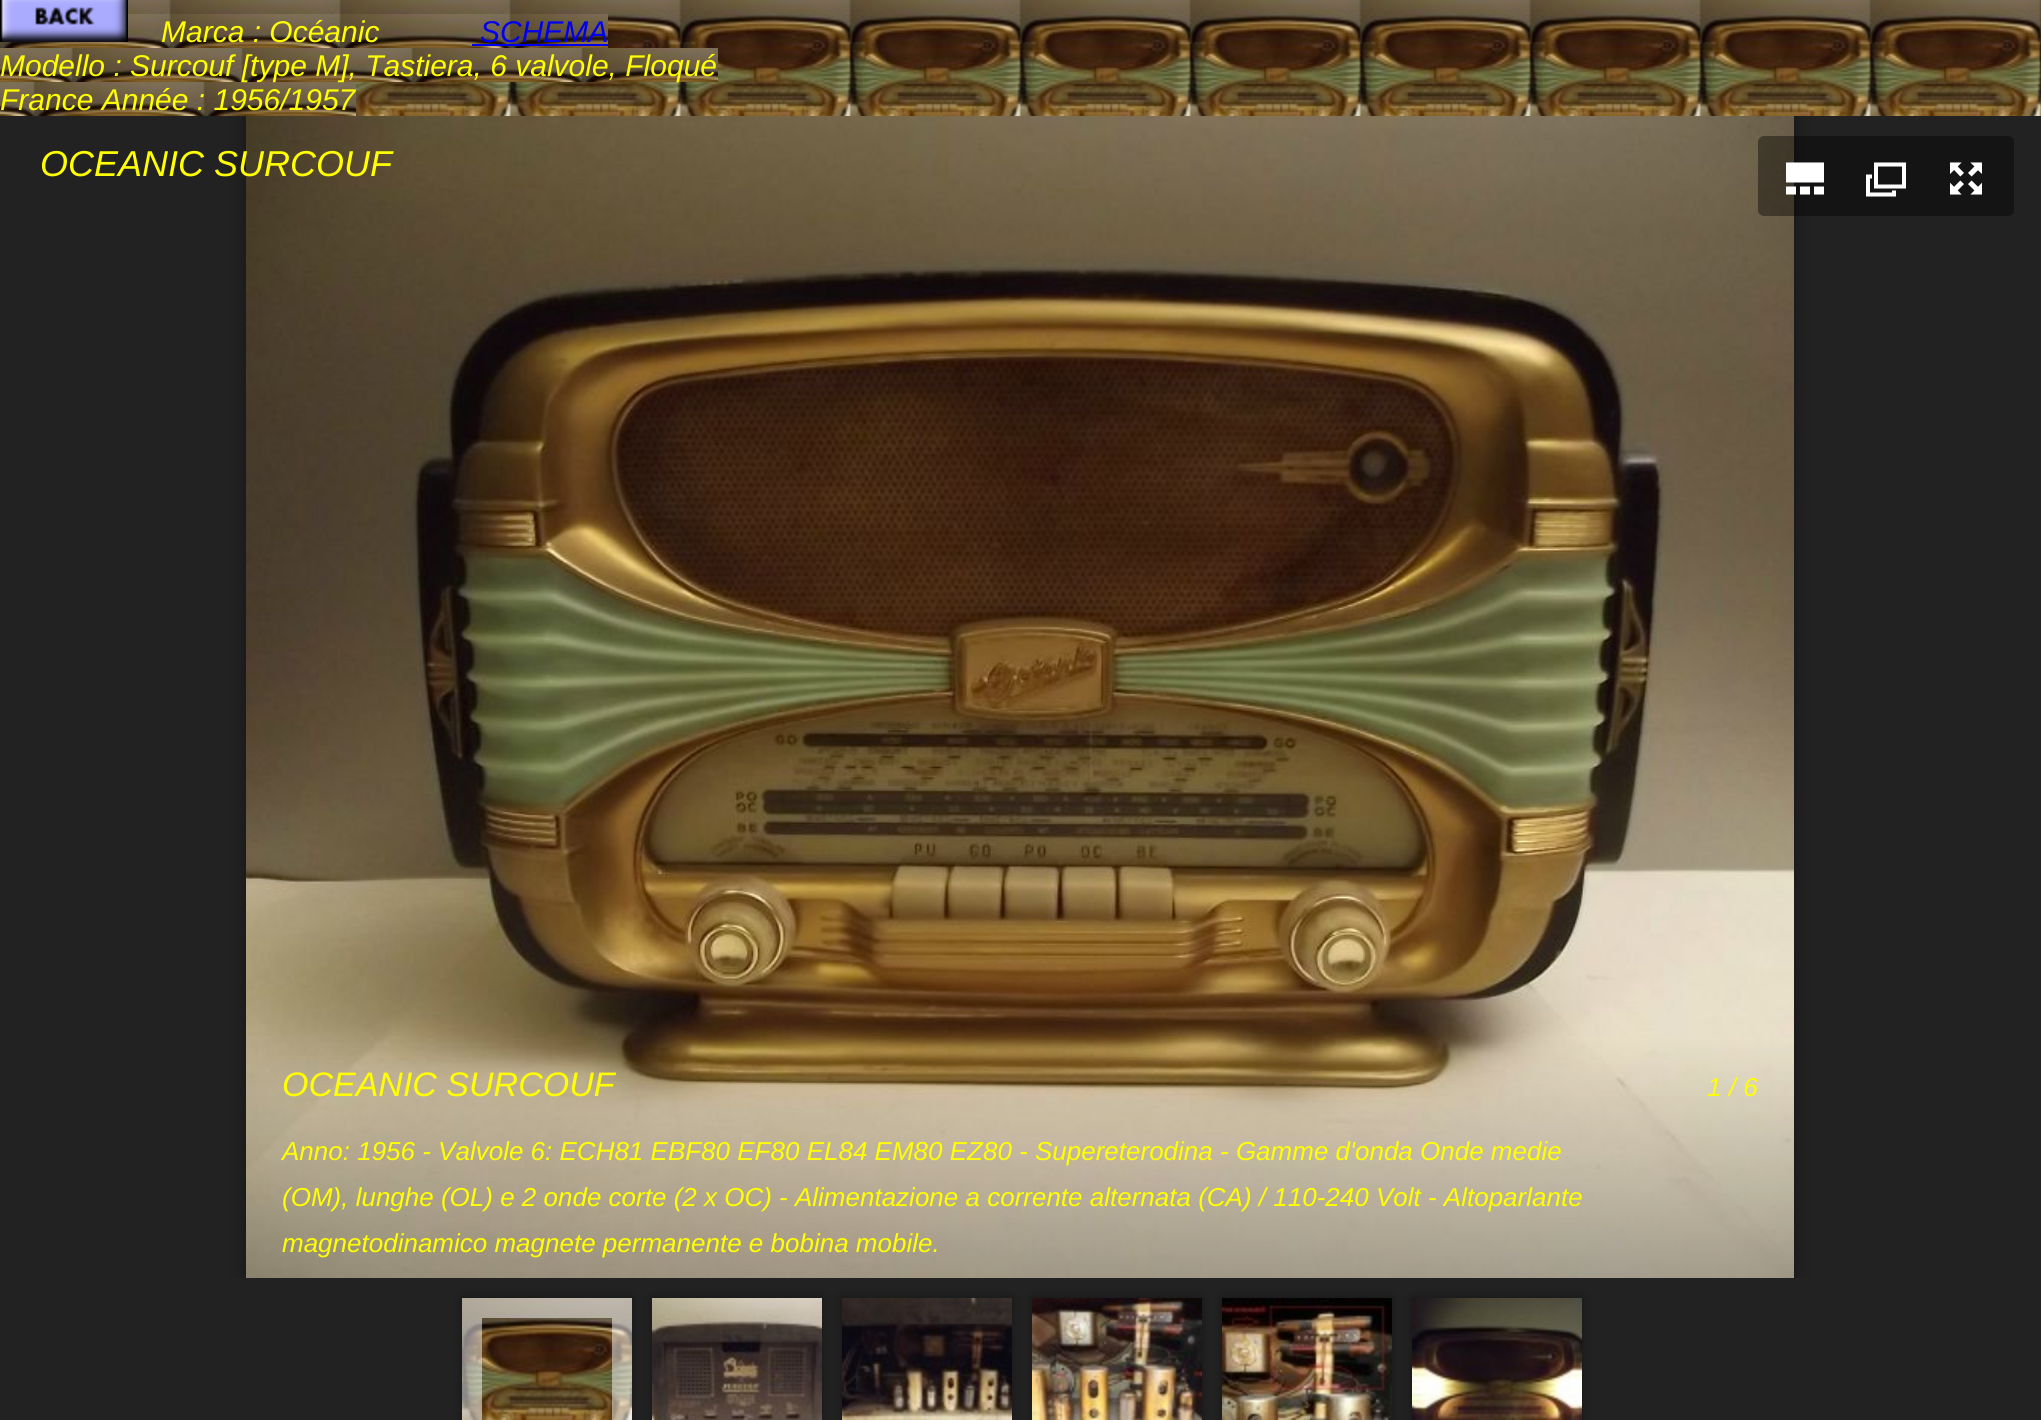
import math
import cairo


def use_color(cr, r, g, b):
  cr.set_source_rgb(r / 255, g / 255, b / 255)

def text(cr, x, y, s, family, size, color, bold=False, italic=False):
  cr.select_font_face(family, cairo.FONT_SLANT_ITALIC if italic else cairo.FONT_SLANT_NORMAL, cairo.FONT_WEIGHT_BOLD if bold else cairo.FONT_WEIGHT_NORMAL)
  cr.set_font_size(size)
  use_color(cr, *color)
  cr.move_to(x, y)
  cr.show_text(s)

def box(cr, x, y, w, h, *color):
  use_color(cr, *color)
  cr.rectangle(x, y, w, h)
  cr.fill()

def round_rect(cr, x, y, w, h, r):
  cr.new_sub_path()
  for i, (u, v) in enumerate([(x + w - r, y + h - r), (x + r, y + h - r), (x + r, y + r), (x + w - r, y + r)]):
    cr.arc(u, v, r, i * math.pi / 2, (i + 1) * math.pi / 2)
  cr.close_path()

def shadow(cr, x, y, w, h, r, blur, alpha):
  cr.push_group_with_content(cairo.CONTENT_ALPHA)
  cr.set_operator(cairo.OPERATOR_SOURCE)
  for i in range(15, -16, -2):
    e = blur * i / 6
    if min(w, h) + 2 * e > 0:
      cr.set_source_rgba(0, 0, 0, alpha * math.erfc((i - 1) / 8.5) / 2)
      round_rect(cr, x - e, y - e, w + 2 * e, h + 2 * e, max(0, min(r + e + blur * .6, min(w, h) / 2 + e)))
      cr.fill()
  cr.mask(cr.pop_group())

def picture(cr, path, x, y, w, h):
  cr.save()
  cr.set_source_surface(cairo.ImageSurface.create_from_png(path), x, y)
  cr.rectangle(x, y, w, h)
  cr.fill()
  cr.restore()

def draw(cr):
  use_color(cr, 255, 255, 255)
  cr.paint()
  picture(cr, "img_01.png", 128, 0, 1913, 116)
  picture(cr, "img_03.png", 0, 14, 718, 102)
  picture(cr, "img_02.png", 0, 0, 128, 42)
  box(cr, 472, 44, 136, 2, 0, 0, 238)
  box(cr, 0, 116, 2041, 1304, 34, 34, 34)
  cr.save()
  cr.rectangle(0, 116, 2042, 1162)
  cr.clip()
  use_color(cr, 0, 0, 0)
  shadow(cr, 246, 116, 1548, 1162, 0, 10, 0.4)
  cr.restore()
  picture(cr, "img_04.png", 246, 116, 1548, 1162)
  cr.set_source_rgba(0, 0, 0, 0.4)
  round_rect(cr, 1758, 136, 256, 80, 6)
  cr.fill()
  picture(cr, "img_05.png", 1786, 162, 38, 33)
  picture(cr, "img_06.png", 1866, 162, 40, 35)
  picture(cr, "img_07.png", 1950, 162, 32, 33)
  use_color(cr, 0, 0, 0)
  shadow(cr, 462, 1298, 170, 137, 0, 5, 0.4)
  picture(cr, "img_08.png", 462, 1298, 170, 122)
  cr.rectangle(472, 1308, 150, 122)
  cr.set_source_rgba(1, 1, 1, 0.5)
  cr.set_line_width(20)
  cr.stroke()
  use_color(cr, 0, 0, 0)
  shadow(cr, 652, 1298, 170, 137, 0, 5, 0.4)
  picture(cr, "img_09.png", 652, 1298, 170, 122)
  shadow(cr, 842, 1298, 170, 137, 0, 5, 0.4)
  picture(cr, "img_10.png", 842, 1298, 170, 122)
  shadow(cr, 1032, 1298, 170, 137, 0, 5, 0.4)
  picture(cr, "img_11.png", 1032, 1298, 170, 122)
  shadow(cr, 1222, 1298, 170, 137, 0, 5, 0.4)
  picture(cr, "img_12.png", 1222, 1298, 170, 122)
  shadow(cr, 1412, 1298, 170, 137, 0, 5, 0.4)
  picture(cr, "img_13.png", 1412, 1298, 170, 122)
  text(cr, 161, 42, "Marca : Océanic", "Liberation Sans", 30, (255, 255, 0), italic=True)
  text(cr, 480, 42, "SCHEMA", "Liberation Sans", 30, (0, 0, 238), italic=True)
  text(cr, 0, 76, "Modello : Surcouf [type M], Tastiera, 6 valvole, Floqué", "Liberation Sans", 30, (255, 255, 0), italic=True)
  text(cr, 0, 110, "France Année : 1956/1957", "Liberation Sans", 30, (255, 255, 0), italic=True)
  text(cr, 40, 176, "OCEANIC SURCOUF", "Liberation Sans", 36, (255, 255, 0), italic=True)
  text(cr, 282, 1096, "OCEANIC SURCOUF", "Liberation Sans", 34, (255, 255, 0), italic=True)
  text(cr, 1707, 1096, "1 / 6", "Liberation Sans", 26, (255, 255, 0), italic=True)
  text(cr, 282, 1160, "Anno: 1956 - Valvole 6: ECH81 EBF80 EF80 EL84 EM80 EZ80 - Supereterodina - Gamme d'onda Onde medie", "Liberation Sans", 26, (255, 255, 0), italic=True)
  text(cr, 282, 1206, "(OM), lunghe (OL) e 2 onde corte (2 x OC) - Alimentazione a corrente alternata (CA) / 110-240 Volt - Altoparlante", "Liberation Sans", 26, (255, 255, 0), italic=True)
  text(cr, 282, 1252, "magnetodinamico magnete permanente e bobina mobile.", "Liberation Sans", 26, (255, 255, 0), italic=True)


surface = cairo.ImageSurface(cairo.FORMAT_RGB24, 2041, 1420)
cr = cairo.Context(surface)
options = cairo.FontOptions()
options.set_hint_metrics(cairo.HINT_METRICS_OFF)
options.set_hint_style(cairo.HINT_STYLE_NONE)
cr.set_font_options(options)
cr.set_miter_limit(4)
draw(cr)
surface.write_to_png("out.png")
